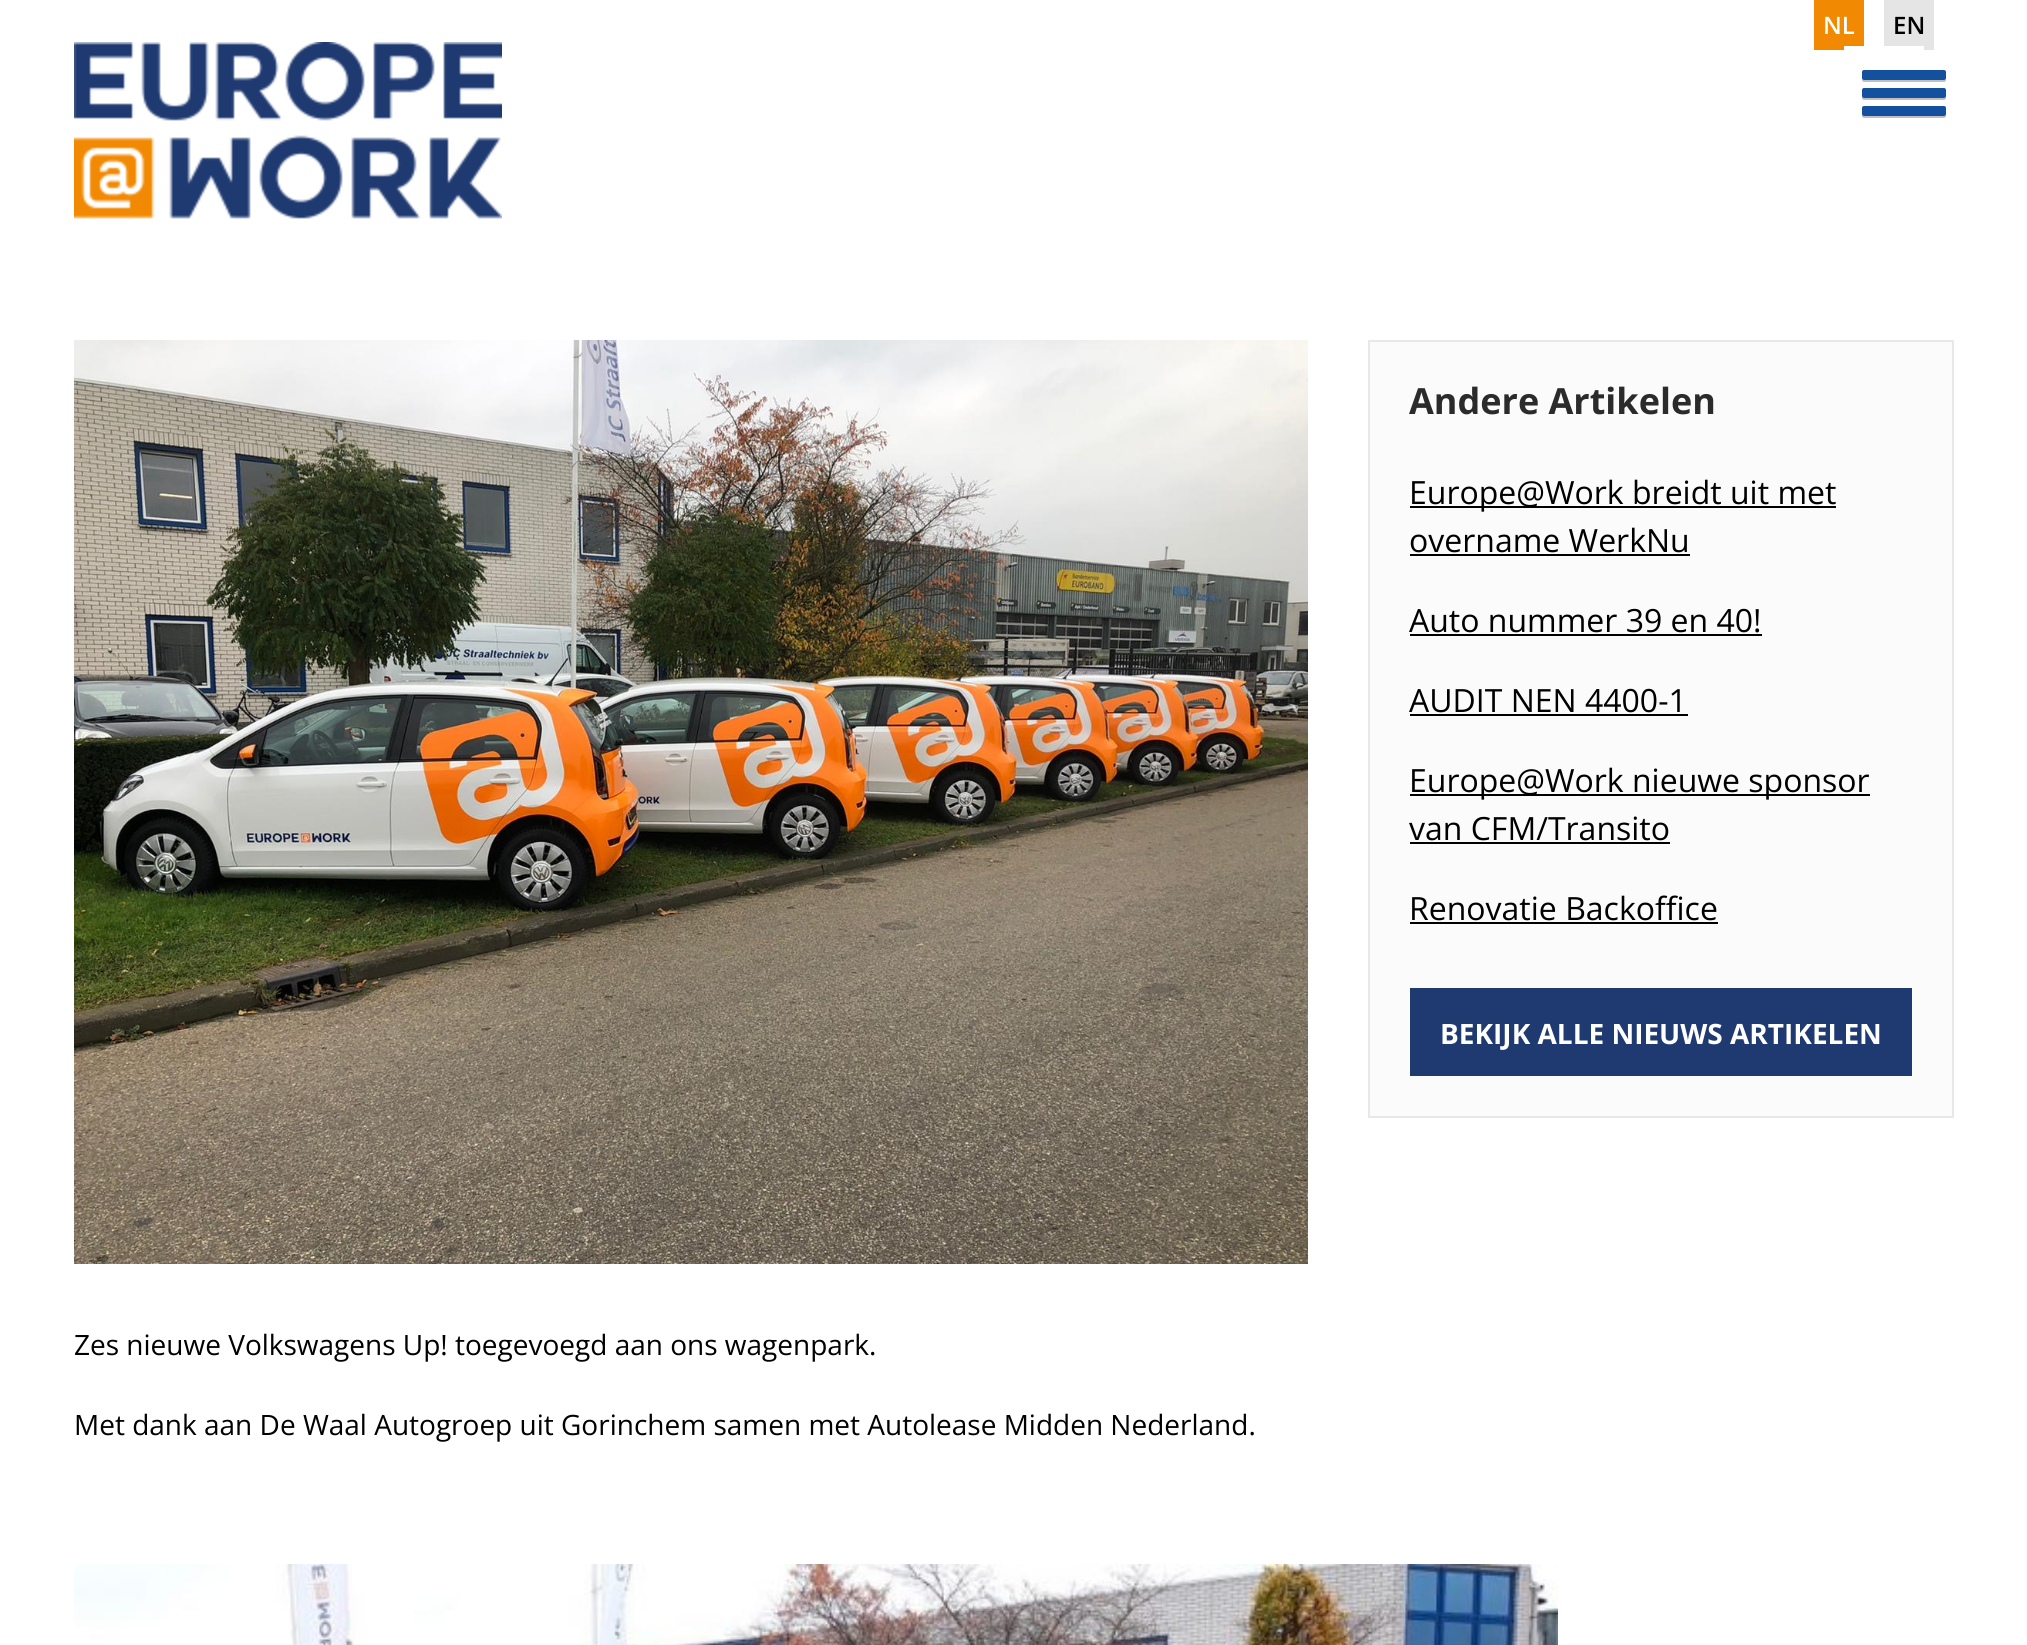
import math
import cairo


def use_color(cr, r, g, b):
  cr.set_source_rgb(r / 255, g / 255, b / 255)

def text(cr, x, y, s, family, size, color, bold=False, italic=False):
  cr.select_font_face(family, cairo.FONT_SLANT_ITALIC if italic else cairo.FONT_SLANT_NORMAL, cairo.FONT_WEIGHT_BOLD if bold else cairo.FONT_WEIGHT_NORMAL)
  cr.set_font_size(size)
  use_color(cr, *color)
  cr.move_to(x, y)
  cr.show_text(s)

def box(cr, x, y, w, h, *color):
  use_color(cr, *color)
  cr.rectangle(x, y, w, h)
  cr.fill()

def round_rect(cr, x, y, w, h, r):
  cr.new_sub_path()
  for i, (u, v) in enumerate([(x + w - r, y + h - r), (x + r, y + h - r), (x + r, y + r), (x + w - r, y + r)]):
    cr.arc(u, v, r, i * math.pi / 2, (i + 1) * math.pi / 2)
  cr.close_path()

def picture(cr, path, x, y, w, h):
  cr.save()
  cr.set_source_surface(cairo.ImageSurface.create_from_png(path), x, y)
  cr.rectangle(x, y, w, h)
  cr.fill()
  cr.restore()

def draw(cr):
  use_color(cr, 255, 255, 255)
  cr.paint()
  box(cr, 1814, 0, 50, 50, 241, 137, 3)
  box(cr, 1884, 0, 50, 50, 229, 229, 229)
  picture(cr, "img_01.png", 74, 42, 428, 177)
  box(cr, 1844, 46, 80, 4, 255, 255, 255)
  use_color(cr, 191, 191, 191)
  cr.new_path()
  cr.move_to(1862, 78)
  cr.line_to(1862, 80)
  cr.curve_to(1862, 81, 1863, 82, 1864, 82)
  cr.line_to(1944, 82)
  cr.curve_to(1945, 82, 1946, 81, 1946, 80)
  cr.line_to(1946, 78)
  cr.curve_to(1946, 79, 1945, 80, 1944, 80)
  cr.line_to(1863, 80)
  cr.close_path()
  cr.fill()
  use_color(cr, 19, 81, 158)
  round_rect(cr, 1862, 70, 84, 10, 2)
  cr.fill()
  use_color(cr, 191, 191, 191)
  cr.new_path()
  cr.move_to(1862, 96)
  cr.line_to(1862, 98)
  cr.curve_to(1862, 99, 1863, 100, 1864, 100)
  cr.line_to(1944, 100)
  cr.curve_to(1945, 100, 1946, 99, 1946, 98)
  cr.line_to(1946, 96)
  cr.curve_to(1946, 97, 1945, 98, 1944, 98)
  cr.line_to(1863, 98)
  cr.close_path()
  cr.fill()
  use_color(cr, 19, 81, 158)
  round_rect(cr, 1862, 88, 84, 10, 2)
  cr.fill()
  use_color(cr, 191, 191, 191)
  cr.new_path()
  cr.move_to(1862, 114)
  cr.line_to(1862, 116)
  cr.curve_to(1862, 117, 1863, 118, 1864, 118)
  cr.line_to(1944, 118)
  cr.curve_to(1945, 118, 1946, 117, 1946, 116)
  cr.line_to(1946, 114)
  cr.curve_to(1946, 115, 1945, 116, 1944, 116)
  cr.line_to(1863, 116)
  cr.close_path()
  cr.fill()
  use_color(cr, 19, 81, 158)
  round_rect(cr, 1862, 106, 84, 10, 2)
  cr.fill()
  use_color(cr, 251, 251, 251)
  cr.rectangle(1369, 341, 584, 776)
  cr.fill_preserve()
  use_color(cr, 232, 232, 232)
  cr.stroke()
  box(cr, 1410, 506, 426, 2, 0, 0, 0)
  box(cr, 1410, 554, 280, 2, 0, 0, 0)
  box(cr, 1410, 634, 352, 2, 0, 0, 0)
  box(cr, 1410, 714, 278, 2, 0, 0, 0)
  box(cr, 1410, 794, 460, 2, 0, 0, 0)
  box(cr, 1410, 842, 260, 2, 0, 0, 0)
  box(cr, 1410, 922, 308, 2, 0, 0, 0)
  box(cr, 1410, 988, 502, 88, 31, 58, 113)
  picture(cr, "img_02.png", 74, 340, 1234, 924)
  picture(cr, "img_03.png", 74, 1564, 1484, 81)
  text(cr, 1823, 34, "NL", "Open Sans SemiBold", 24, (255, 255, 255))
  text(cr, 1893, 34, "EN", "Open Sans SemiBold", 24, (0, 0, 0))
  text(cr, 1409, 414, "Andere Artikelen", "Open Sans", 36, (43, 43, 43), bold=True)
  text(cr, 1409, 504, "Europe@Work breidt uit met", "Open Sans", 32, (0, 0, 0))
  text(cr, 1409, 552, "overname WerkNu", "Open Sans", 32, (0, 0, 0))
  text(cr, 1409, 632, "Auto nummer 39 en 40!", "Open Sans", 32, (0, 0, 0))
  text(cr, 1409, 712, "AUDIT NEN 4400-1", "Open Sans", 32, (0, 0, 0))
  text(cr, 1409, 792, "Europe@Work nieuwe sponsor", "Open Sans", 32, (0, 0, 0))
  text(cr, 1409, 840, "van CFM/Transito", "Open Sans", 32, (0, 0, 0))
  text(cr, 1409, 920, "Renovatie Backoffice", "Open Sans", 32, (0, 0, 0))
  text(cr, 1440, 1044, "BEKIJK ALLE NIEUWS ARTIKELEN", "Open Sans", 28, (255, 255, 255), bold=True)
  text(cr, 74, 1355, "Zes nieuwe Volkswagens Up! toegevoegd aan ons wagenpark.", "Open Sans", 28, (0, 0, 0))
  text(cr, 74, 1435, "Met dank aan De Waal Autogroep uit Gorinchem samen met Autolease Midden Nederland.", "Open Sans", 28, (0, 0, 0))


surface = cairo.ImageSurface(cairo.FORMAT_RGB24, 2027, 1645)
cr = cairo.Context(surface)
options = cairo.FontOptions()
options.set_hint_metrics(cairo.HINT_METRICS_OFF)
options.set_hint_style(cairo.HINT_STYLE_NONE)
cr.set_font_options(options)
cr.set_miter_limit(4)
draw(cr)
surface.write_to_png("out.png")
